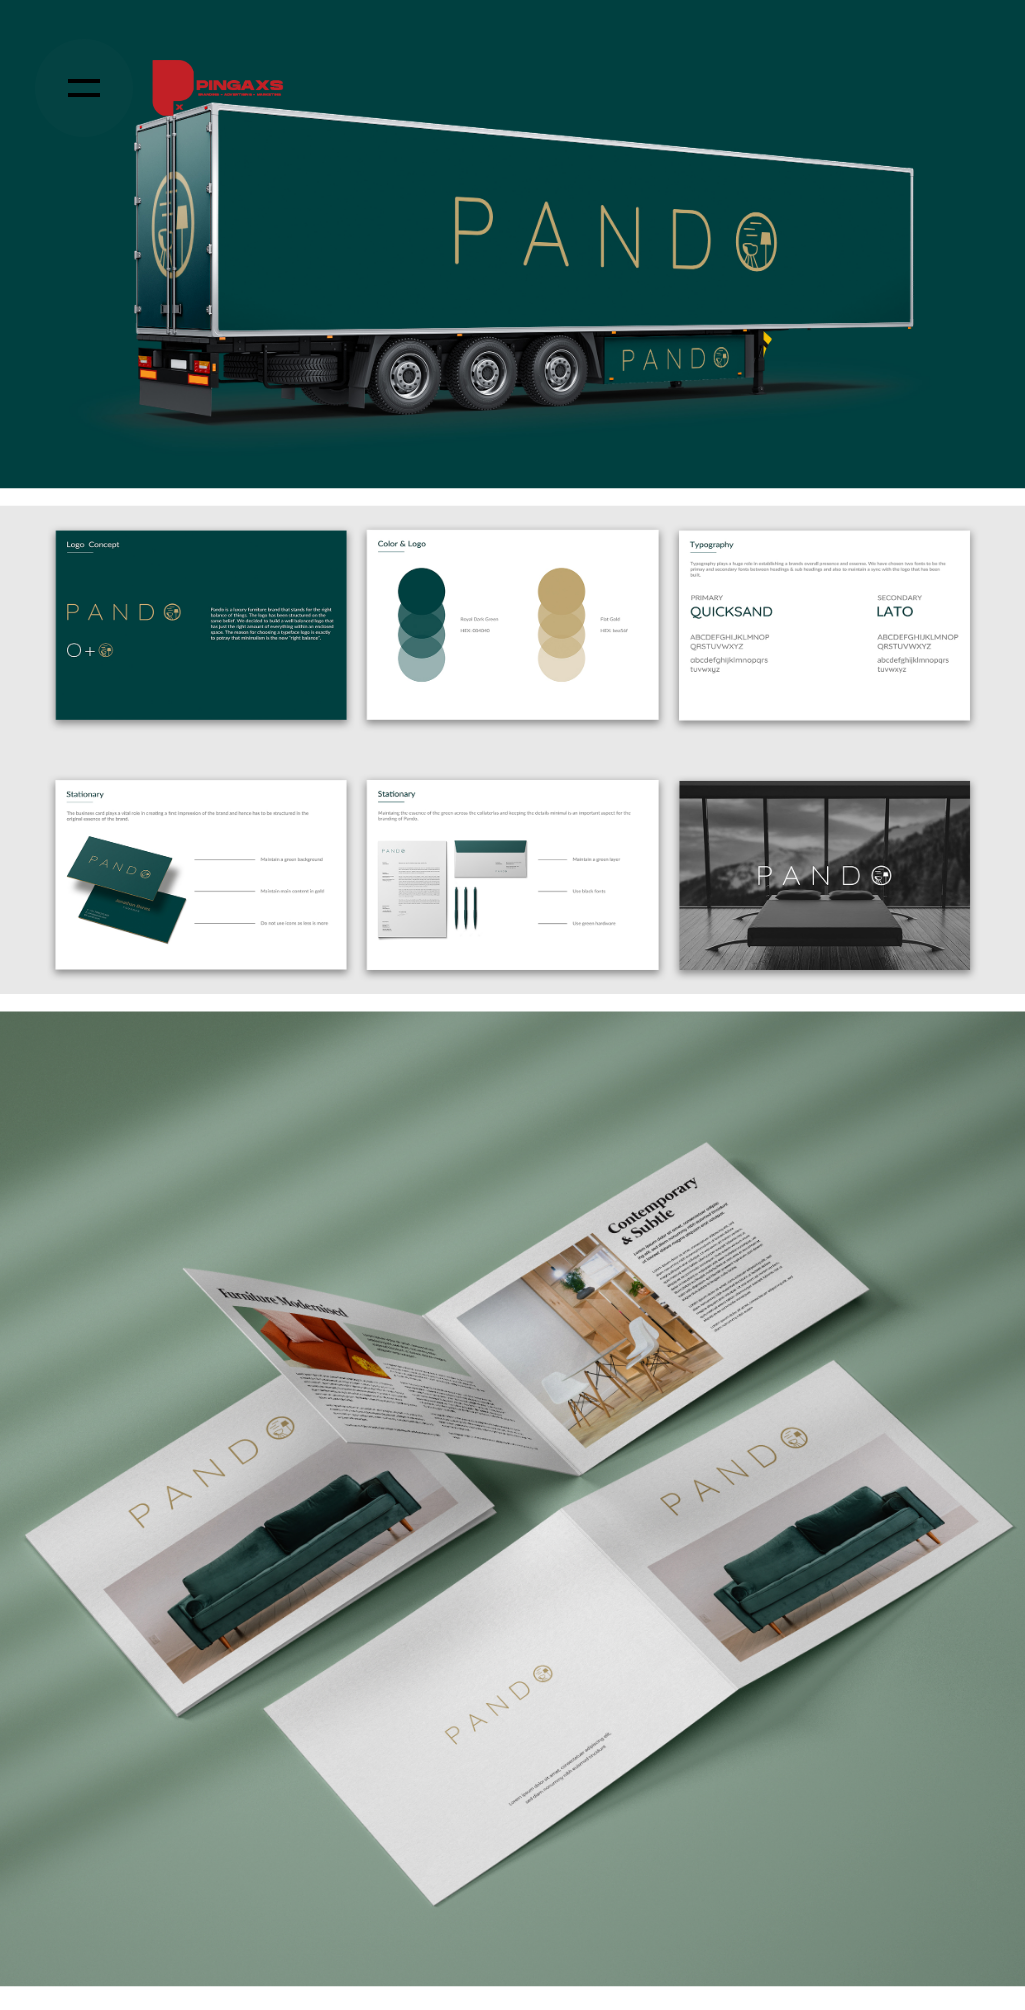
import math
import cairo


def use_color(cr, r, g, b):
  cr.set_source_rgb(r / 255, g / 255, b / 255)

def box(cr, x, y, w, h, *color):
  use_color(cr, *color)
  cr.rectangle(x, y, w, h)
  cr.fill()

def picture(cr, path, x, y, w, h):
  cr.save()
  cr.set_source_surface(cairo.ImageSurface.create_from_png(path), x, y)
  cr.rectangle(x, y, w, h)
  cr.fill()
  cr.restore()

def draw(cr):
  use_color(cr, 255, 255, 255)
  cr.paint()
  picture(cr, "img_01.png", 0, 0, 1025, 489)
  picture(cr, "img_02.png", 0, 505, 1025, 489)
  picture(cr, "img_03.png", 0, 1011, 1025, 976)
  use_color(cr, 4, 66, 66)
  cr.arc(84, 88, 49, 0, 2 * math.pi)
  cr.fill()
  box(cr, 68, 79, 32, 4, 0, 0, 0)
  box(cr, 68, 93, 32, 4, 0, 0, 0)
  picture(cr, "img_04.png", 152, 60, 132, 56)


surface = cairo.ImageSurface(cairo.FORMAT_RGB24, 1025, 2010)
cr = cairo.Context(surface)
options = cairo.FontOptions()
options.set_hint_metrics(cairo.HINT_METRICS_OFF)
options.set_hint_style(cairo.HINT_STYLE_NONE)
cr.set_font_options(options)
cr.set_miter_limit(4)
draw(cr)
surface.write_to_png("out.png")
